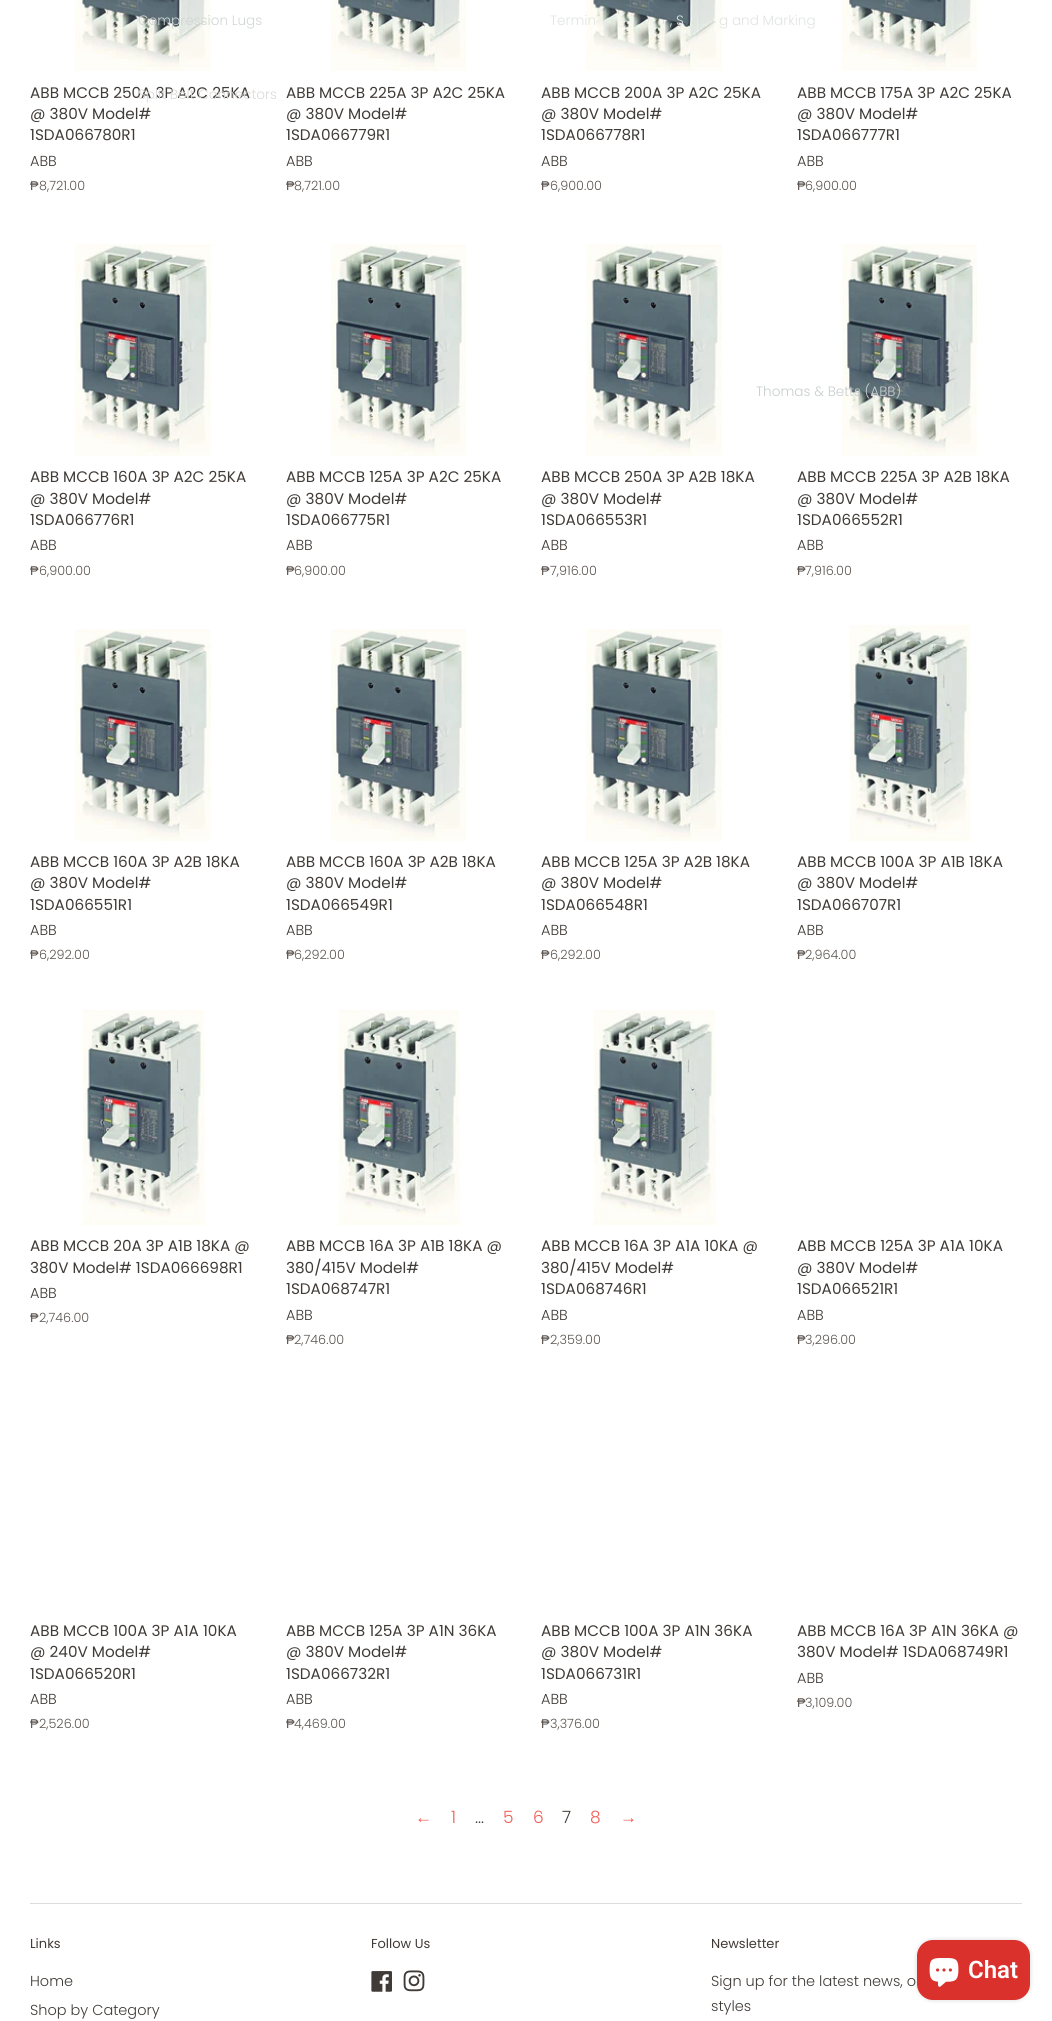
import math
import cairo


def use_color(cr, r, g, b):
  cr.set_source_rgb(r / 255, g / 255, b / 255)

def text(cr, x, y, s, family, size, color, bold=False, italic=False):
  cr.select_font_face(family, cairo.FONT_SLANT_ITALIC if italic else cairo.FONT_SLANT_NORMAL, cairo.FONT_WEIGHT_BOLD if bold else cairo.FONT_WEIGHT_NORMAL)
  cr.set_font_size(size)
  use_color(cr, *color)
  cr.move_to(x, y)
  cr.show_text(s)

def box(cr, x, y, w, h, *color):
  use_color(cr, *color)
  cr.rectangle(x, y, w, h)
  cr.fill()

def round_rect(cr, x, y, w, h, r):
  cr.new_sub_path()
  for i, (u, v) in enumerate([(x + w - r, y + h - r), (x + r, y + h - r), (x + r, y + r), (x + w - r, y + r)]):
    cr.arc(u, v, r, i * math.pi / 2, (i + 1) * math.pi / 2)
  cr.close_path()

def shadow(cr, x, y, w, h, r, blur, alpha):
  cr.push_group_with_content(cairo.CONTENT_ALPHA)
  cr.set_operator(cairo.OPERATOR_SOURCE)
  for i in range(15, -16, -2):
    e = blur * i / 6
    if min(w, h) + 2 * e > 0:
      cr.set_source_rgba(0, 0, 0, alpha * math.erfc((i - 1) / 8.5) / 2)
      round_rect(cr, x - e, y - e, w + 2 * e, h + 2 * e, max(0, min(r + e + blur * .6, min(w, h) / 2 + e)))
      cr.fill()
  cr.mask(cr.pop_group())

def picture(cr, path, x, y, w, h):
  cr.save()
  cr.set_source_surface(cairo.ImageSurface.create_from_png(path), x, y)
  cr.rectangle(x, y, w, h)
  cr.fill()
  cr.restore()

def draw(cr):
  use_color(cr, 255, 255, 255)
  cr.paint()
  picture(cr, "img_01.png", 75, 0, 136, 71)
  picture(cr, "img_02.png", 331, 0, 135, 71)
  picture(cr, "img_01.png", 586, 0, 136, 71)
  picture(cr, "img_02.png", 842, 0, 135, 71)
  picture(cr, "img_03.png", 75, 244, 136, 212)
  picture(cr, "img_04.png", 331, 244, 135, 212)
  picture(cr, "img_03.png", 586, 244, 136, 212)
  picture(cr, "img_04.png", 842, 244, 135, 212)
  picture(cr, "img_03.png", 75, 629, 136, 212)
  picture(cr, "img_04.png", 331, 629, 135, 212)
  picture(cr, "img_03.png", 586, 629, 136, 212)
  picture(cr, "img_05.png", 849, 624, 122, 217)
  picture(cr, "img_06.png", 82, 1009, 123, 216)
  picture(cr, "img_07.png", 338, 1009, 122, 216)
  picture(cr, "img_06.png", 593, 1009, 123, 216)
  box(cr, 30, 1903, 992, 1, 221, 221, 221)
  picture(cr, "img_08.png", 371, 1971, 21, 21)
  picture(cr, "img_09.png", 403, 1970, 22, 22)
  use_color(cr, 0, 0, 0)
  shadow(cr, 917, 1940, 113, 60, 16, 2.5, 0.15)
  use_color(cr, 218, 49, 45)
  round_rect(cr, 917, 1940, 113, 60, 16)
  cr.fill()
  picture(cr, "img_10.png", 929, 1958, 30, 29)
  text(cr, 138, 25, "Compression Lugs", "Poppins Light", 13.6, (209, 214, 213))
  text(cr, 550, 25, "Termin", "Poppins Light", 13.6, (225, 228, 226))
  text(cr, 670, 25, ", S", "Poppins Light", 13.6, (225, 228, 226))
  text(cr, 719, 25, "g and Marking", "Poppins Light", 13.6, (225, 228, 226))
  text(cr, 756, 396, "Thomas & Betts (ABB)", "Poppins Light", 13.6, (200, 205, 207))
  text(cr, 30, 98, "ABB MCCB 250A 3P A2C 25KA", "Poppins", 15.25, (64, 59, 55))
  text(cr, 138, 99, "Split Bolt Connectors", "Poppins Light", 13.6, (219, 218, 217))
  text(cr, 30, 119, "@ 380V Model#", "Poppins", 15.25, (64, 59, 55))
  text(cr, 30, 140, "1SDA066780R1", "Poppins", 15.25, (64, 59, 55))
  text(cr, 30, 166, "ABB", "Poppins Light", 14.5, (64, 59, 55))
  text(cr, 30, 190, "₱", "Liberation Sans", 12.75, (91, 84, 79))
  text(cr, 39, 190, "8,721.00", "Poppins Light", 12.75, (91, 84, 79))
  text(cr, 286, 98, "ABB MCCB 225A 3P A2C 25KA", "Poppins", 15.25, (64, 59, 55))
  text(cr, 286, 119, "@ 380V Model#", "Poppins", 15.25, (64, 59, 55))
  text(cr, 286, 140, "1SDA066779R1", "Poppins", 15.25, (64, 59, 55))
  text(cr, 286, 166, "ABB", "Poppins Light", 14.5, (64, 59, 55))
  text(cr, 286, 190, "₱", "Liberation Sans", 12.75, (91, 84, 79))
  text(cr, 294, 190, "8,721.00", "Poppins Light", 12.75, (91, 84, 79))
  text(cr, 541, 98, "ABB MCCB 200A 3P A2C 25KA", "Poppins", 15.25, (64, 59, 55))
  text(cr, 541, 119, "@ 380V Model#", "Poppins", 15.25, (64, 59, 55))
  text(cr, 541, 140, "1SDA066778R1", "Poppins", 15.25, (64, 59, 55))
  text(cr, 541, 166, "ABB", "Poppins Light", 14.5, (64, 59, 55))
  text(cr, 541, 190, "₱", "Liberation Sans", 12.75, (91, 84, 79))
  text(cr, 550, 190, "6,900.00", "Poppins Light", 12.75, (91, 84, 79))
  text(cr, 797, 98, "ABB MCCB 175A 3P A2C 25KA", "Poppins", 15.25, (64, 59, 55))
  text(cr, 797, 119, "@ 380V Model#", "Poppins", 15.25, (64, 59, 55))
  text(cr, 797, 140, "1SDA066777R1", "Poppins", 15.25, (64, 59, 55))
  text(cr, 797, 166, "ABB", "Poppins Light", 14.5, (64, 59, 55))
  text(cr, 797, 190, "₱", "Liberation Sans", 12.75, (91, 84, 79))
  text(cr, 805, 190, "6,900.00", "Poppins Light", 12.75, (91, 84, 79))
  text(cr, 30, 482, "ABB MCCB 160A 3P A2C 25KA", "Poppins", 15.25, (64, 59, 55))
  text(cr, 30, 504, "@ 380V Model#", "Poppins", 15.25, (64, 59, 55))
  text(cr, 30, 525, "1SDA066776R1", "Poppins", 15.25, (64, 59, 55))
  text(cr, 30, 550, "ABB", "Poppins Light", 14.5, (64, 59, 55))
  text(cr, 30, 575, "₱", "Liberation Sans", 12.75, (91, 84, 79))
  text(cr, 39, 575, "6,900.00", "Poppins Light", 12.75, (91, 84, 79))
  text(cr, 286, 482, "ABB MCCB 125A 3P A2C 25KA", "Poppins", 15.25, (64, 59, 55))
  text(cr, 286, 504, "@ 380V Model#", "Poppins", 15.25, (64, 59, 55))
  text(cr, 286, 525, "1SDA066775R1", "Poppins", 15.25, (64, 59, 55))
  text(cr, 286, 550, "ABB", "Poppins Light", 14.5, (64, 59, 55))
  text(cr, 286, 575, "₱", "Liberation Sans", 12.75, (91, 84, 79))
  text(cr, 294, 575, "6,900.00", "Poppins Light", 12.75, (91, 84, 79))
  text(cr, 541, 482, "ABB MCCB 250A 3P A2B 18KA", "Poppins", 15.25, (64, 59, 55))
  text(cr, 541, 504, "@ 380V Model#", "Poppins", 15.25, (64, 59, 55))
  text(cr, 541, 525, "1SDA066553R1", "Poppins", 15.25, (64, 59, 55))
  text(cr, 541, 550, "ABB", "Poppins Light", 14.5, (64, 59, 55))
  text(cr, 541, 575, "₱", "Liberation Sans", 12.75, (91, 84, 79))
  text(cr, 550, 575, "7,916.00", "Poppins Light", 12.75, (91, 84, 79))
  text(cr, 797, 482, "ABB MCCB 225A 3P A2B 18KA", "Poppins", 15.25, (64, 59, 55))
  text(cr, 797, 504, "@ 380V Model#", "Poppins", 15.25, (64, 59, 55))
  text(cr, 797, 525, "1SDA066552R1", "Poppins", 15.25, (64, 59, 55))
  text(cr, 797, 550, "ABB", "Poppins Light", 14.5, (64, 59, 55))
  text(cr, 797, 575, "₱", "Liberation Sans", 12.75, (91, 84, 79))
  text(cr, 805, 575, "7,916.00", "Poppins Light", 12.75, (91, 84, 79))
  text(cr, 30, 867, "ABB MCCB 160A 3P A2B 18KA", "Poppins", 15.25, (64, 59, 55))
  text(cr, 30, 888, "@ 380V Model#", "Poppins", 15.25, (64, 59, 55))
  text(cr, 30, 910, "1SDA066551R1", "Poppins", 15.25, (64, 59, 55))
  text(cr, 30, 935, "ABB", "Poppins Light", 14.5, (64, 59, 55))
  text(cr, 30, 959, "₱", "Liberation Sans", 12.75, (91, 84, 79))
  text(cr, 39, 959, "6,292.00", "Poppins Light", 12.75, (91, 84, 79))
  text(cr, 286, 867, "ABB MCCB 160A 3P A2B 18KA", "Poppins", 15.25, (64, 59, 55))
  text(cr, 286, 888, "@ 380V Model#", "Poppins", 15.25, (64, 59, 55))
  text(cr, 286, 910, "1SDA066549R1", "Poppins", 15.25, (64, 59, 55))
  text(cr, 286, 935, "ABB", "Poppins Light", 14.5, (64, 59, 55))
  text(cr, 286, 959, "₱", "Liberation Sans", 12.75, (91, 84, 79))
  text(cr, 294, 959, "6,292.00", "Poppins Light", 12.75, (91, 84, 79))
  text(cr, 541, 867, "ABB MCCB 125A 3P A2B 18KA", "Poppins", 15.25, (64, 59, 55))
  text(cr, 541, 888, "@ 380V Model#", "Poppins", 15.25, (64, 59, 55))
  text(cr, 541, 910, "1SDA066548R1", "Poppins", 15.25, (64, 59, 55))
  text(cr, 541, 935, "ABB", "Poppins Light", 14.5, (64, 59, 55))
  text(cr, 541, 959, "₱", "Liberation Sans", 12.75, (91, 84, 79))
  text(cr, 550, 959, "6,292.00", "Poppins Light", 12.75, (91, 84, 79))
  text(cr, 797, 867, "ABB MCCB 100A 3P A1B 18KA", "Poppins", 15.25, (64, 59, 55))
  text(cr, 797, 888, "@ 380V Model#", "Poppins", 15.25, (64, 59, 55))
  text(cr, 797, 910, "1SDA066707R1", "Poppins", 15.25, (64, 59, 55))
  text(cr, 797, 935, "ABB", "Poppins Light", 14.5, (64, 59, 55))
  text(cr, 797, 959, "₱", "Liberation Sans", 12.75, (91, 84, 79))
  text(cr, 805, 959, "2,964.00", "Poppins Light", 12.75, (91, 84, 79))
  text(cr, 30, 1251, "ABB MCCB 20A 3P A1B 18KA @", "Poppins", 15.25, (64, 59, 55))
  text(cr, 30, 1273, "380V Model# 1SDA066698R1", "Poppins", 15.25, (64, 59, 55))
  text(cr, 30, 1298, "ABB", "Poppins Light", 14.5, (64, 59, 55))
  text(cr, 30, 1322, "₱", "Liberation Sans", 12.75, (91, 84, 79))
  text(cr, 39, 1322, "2,746.00", "Poppins Light", 12.75, (91, 84, 79))
  text(cr, 286, 1251, "ABB MCCB 16A 3P A1B 18KA @", "Poppins", 15.25, (64, 59, 55))
  text(cr, 286, 1273, "380/415V Model#", "Poppins", 15.25, (64, 59, 55))
  text(cr, 286, 1294, "1SDA068747R1", "Poppins", 15.25, (64, 59, 55))
  text(cr, 286, 1320, "ABB", "Poppins Light", 14.5, (64, 59, 55))
  text(cr, 286, 1344, "₱", "Liberation Sans", 12.75, (91, 84, 79))
  text(cr, 294, 1344, "2,746.00", "Poppins Light", 12.75, (91, 84, 79))
  text(cr, 541, 1251, "ABB MCCB 16A 3P A1A 10KA @", "Poppins", 15.25, (64, 59, 55))
  text(cr, 541, 1273, "380/415V Model#", "Poppins", 15.25, (64, 59, 55))
  text(cr, 541, 1294, "1SDA068746R1", "Poppins", 15.25, (64, 59, 55))
  text(cr, 541, 1320, "ABB", "Poppins Light", 14.5, (64, 59, 55))
  text(cr, 541, 1344, "₱", "Liberation Sans", 12.75, (91, 84, 79))
  text(cr, 550, 1344, "2,359.00", "Poppins Light", 12.75, (91, 84, 79))
  text(cr, 797, 1251, "ABB MCCB 125A 3P A1A 10KA", "Poppins", 15.25, (64, 59, 55))
  text(cr, 797, 1273, "@ 380V Model#", "Poppins", 15.25, (64, 59, 55))
  text(cr, 797, 1294, "1SDA066521R1", "Poppins", 15.25, (64, 59, 55))
  text(cr, 797, 1320, "ABB", "Poppins Light", 14.5, (64, 59, 55))
  text(cr, 797, 1344, "₱", "Liberation Sans", 12.75, (91, 84, 79))
  text(cr, 805, 1344, "3,296.00", "Poppins Light", 12.75, (91, 84, 79))
  text(cr, 30, 1636, "ABB MCCB 100A 3P A1A 10KA", "Poppins", 15.25, (64, 59, 55))
  text(cr, 30, 1657, "@ 240V Model#", "Poppins", 15.25, (64, 59, 55))
  text(cr, 30, 1679, "1SDA066520R1", "Poppins", 15.25, (64, 59, 55))
  text(cr, 30, 1704, "ABB", "Poppins Light", 14.5, (64, 59, 55))
  text(cr, 30, 1728, "₱", "Liberation Sans", 12.75, (91, 84, 79))
  text(cr, 39, 1728, "2,526.00", "Poppins Light", 12.75, (91, 84, 79))
  text(cr, 286, 1636, "ABB MCCB 125A 3P A1N 36KA", "Poppins", 15.25, (64, 59, 55))
  text(cr, 286, 1657, "@ 380V Model#", "Poppins", 15.25, (64, 59, 55))
  text(cr, 286, 1679, "1SDA066732R1", "Poppins", 15.25, (64, 59, 55))
  text(cr, 286, 1704, "ABB", "Poppins Light", 14.5, (64, 59, 55))
  text(cr, 286, 1728, "₱", "Liberation Sans", 12.75, (91, 84, 79))
  text(cr, 294, 1728, "4,469.00", "Poppins Light", 12.75, (91, 84, 79))
  text(cr, 541, 1636, "ABB MCCB 100A 3P A1N 36KA", "Poppins", 15.25, (64, 59, 55))
  text(cr, 541, 1657, "@ 380V Model#", "Poppins", 15.25, (64, 59, 55))
  text(cr, 541, 1679, "1SDA066731R1", "Poppins", 15.25, (64, 59, 55))
  text(cr, 541, 1704, "ABB", "Poppins Light", 14.5, (64, 59, 55))
  text(cr, 541, 1728, "₱", "Liberation Sans", 12.75, (91, 84, 79))
  text(cr, 550, 1728, "3,376.00", "Poppins Light", 12.75, (91, 84, 79))
  text(cr, 797, 1636, "ABB MCCB 16A 3P A1N 36KA @", "Poppins", 15.25, (64, 59, 55))
  text(cr, 797, 1657, "380V Model# 1SDA068749R1", "Poppins", 15.25, (64, 59, 55))
  text(cr, 797, 1683, "ABB", "Poppins Light", 14.5, (64, 59, 55))
  text(cr, 797, 1707, "₱", "Liberation Sans", 12.75, (91, 84, 79))
  text(cr, 805, 1707, "3,109.00", "Poppins Light", 12.75, (91, 84, 79))
  text(cr, 415, 1823, "←", "Liberation Sans", 17, (242, 92, 84))
  text(cr, 451, 1823, "1", "Poppins Light", 17, (242, 92, 84))
  text(cr, 475, 1823, "…", "Poppins Light", 17, (64, 59, 55))
  text(cr, 503, 1823, "5", "Poppins Light", 17, (242, 92, 84))
  text(cr, 533, 1823, "6", "Poppins Light", 17, (242, 92, 84))
  text(cr, 562, 1823, "7", "Poppins Light", 17, (64, 59, 55))
  text(cr, 590, 1823, "8", "Poppins Light", 17, (242, 92, 84))
  text(cr, 620, 1823, "→", "Liberation Sans", 17, (242, 92, 84))
  text(cr, 30, 1948, "Links", "Poppins", 13, (64, 59, 55))
  text(cr, 30, 1986, "Home", "Poppins Light", 14.5, (64, 59, 55))
  text(cr, 30, 2015, "Shop by Category", "Poppins Light", 14.5, (64, 59, 55))
  text(cr, 371, 1948, "Follow Us", "Poppins", 13, (64, 59, 55))
  text(cr, 711, 1948, "Newsletter", "Poppins", 13, (64, 59, 55))
  text(cr, 711, 1986, "Sign up for the latest news, o", "Poppins Light", 14.5, (64, 59, 55))
  text(cr, 711, 2011, "styles", "Poppins Light", 14.5, (64, 59, 55))
  text(cr, 968, 1978, "Chat", "Roboto SemiBold", 24, (255, 255, 255))


surface = cairo.ImageSurface(cairo.FORMAT_RGB24, 1052, 2021)
cr = cairo.Context(surface)
options = cairo.FontOptions()
options.set_hint_metrics(cairo.HINT_METRICS_OFF)
options.set_hint_style(cairo.HINT_STYLE_NONE)
cr.set_font_options(options)
cr.set_miter_limit(4)
draw(cr)
surface.write_to_png("out.png")
